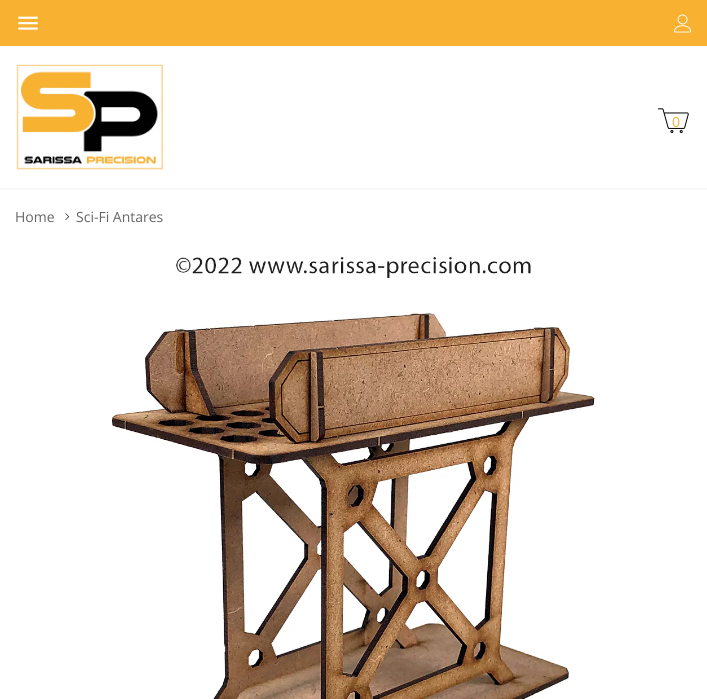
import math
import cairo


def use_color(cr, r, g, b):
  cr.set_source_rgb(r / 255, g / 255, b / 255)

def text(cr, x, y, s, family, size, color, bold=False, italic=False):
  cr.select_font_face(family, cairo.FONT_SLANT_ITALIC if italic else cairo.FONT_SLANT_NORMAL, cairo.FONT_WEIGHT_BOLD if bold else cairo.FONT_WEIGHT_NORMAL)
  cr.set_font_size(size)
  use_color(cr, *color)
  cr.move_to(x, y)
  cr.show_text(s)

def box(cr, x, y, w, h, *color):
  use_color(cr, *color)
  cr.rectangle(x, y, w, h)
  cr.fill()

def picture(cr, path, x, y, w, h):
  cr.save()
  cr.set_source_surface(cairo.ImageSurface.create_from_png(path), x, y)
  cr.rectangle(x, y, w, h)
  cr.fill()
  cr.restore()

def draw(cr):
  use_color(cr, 255, 255, 255)
  cr.paint()
  box(cr, 0, 188, 707, 2, 247, 247, 247)
  box(cr, 0, 0, 707, 46, 248, 177, 49)
  picture(cr, "img_01.png", 18, 16, 20, 14)
  picture(cr, "img_02.png", 674, 14, 18, 19)
  picture(cr, "img_03.png", 16, 64, 148, 106)
  picture(cr, "img_04.png", 658, 108, 31, 25)
  picture(cr, "img_05.png", 65, 213, 4, 8)
  picture(cr, "img_06.png", 110, 255, 486, 444)
  text(cr, 672, 127, "0", "Open Sans", 14, (248, 177, 49))
  text(cr, 15, 222, "Home", "Open Sans", 14, (101, 101, 101))
  text(cr, 76, 222, "Sci-Fi Antares", "Open Sans", 14, (101, 101, 101))


surface = cairo.ImageSurface(cairo.FORMAT_RGB24, 707, 699)
cr = cairo.Context(surface)
options = cairo.FontOptions()
options.set_hint_metrics(cairo.HINT_METRICS_OFF)
options.set_hint_style(cairo.HINT_STYLE_NONE)
cr.set_font_options(options)
cr.set_miter_limit(4)
draw(cr)
surface.write_to_png("out.png")
